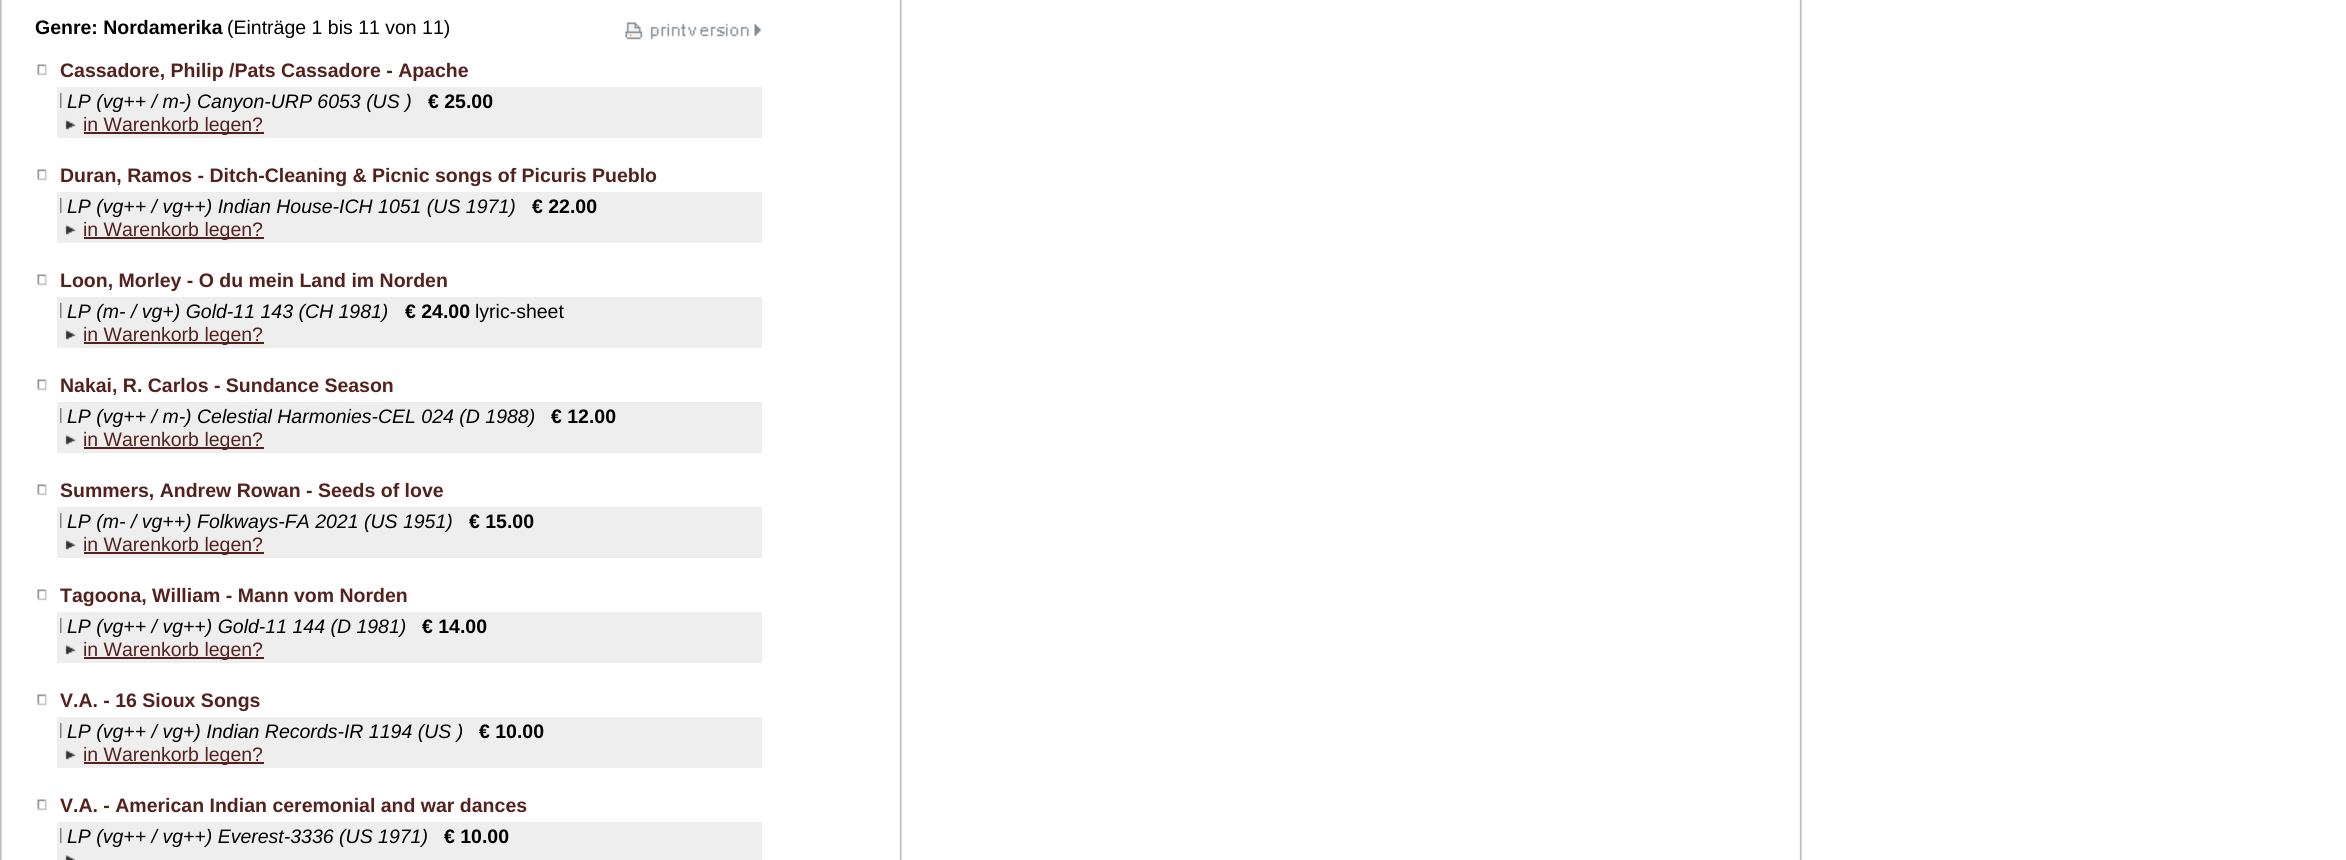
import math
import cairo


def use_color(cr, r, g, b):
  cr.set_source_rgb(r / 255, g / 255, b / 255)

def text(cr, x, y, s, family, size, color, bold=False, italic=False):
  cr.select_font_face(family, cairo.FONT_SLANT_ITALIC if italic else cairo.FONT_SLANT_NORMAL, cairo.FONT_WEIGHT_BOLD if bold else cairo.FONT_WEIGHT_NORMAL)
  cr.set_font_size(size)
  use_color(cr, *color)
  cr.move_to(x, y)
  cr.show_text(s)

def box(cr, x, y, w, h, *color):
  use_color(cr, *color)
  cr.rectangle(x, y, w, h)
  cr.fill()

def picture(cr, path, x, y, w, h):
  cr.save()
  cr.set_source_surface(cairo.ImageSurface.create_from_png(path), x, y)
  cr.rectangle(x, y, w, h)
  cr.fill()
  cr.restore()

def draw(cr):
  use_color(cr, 255, 255, 255)
  cr.paint()
  picture(cr, "img_01.png", 0, 0, 1802, 860)
  picture(cr, "img_02.png", 625, 22, 136, 18)
  picture(cr, "img_03.png", 37, 64, 10, 12)
  box(cr, 57, 87, 705, 51, 238, 238, 238)
  picture(cr, "img_04.png", 60, 93, 2, 15)
  picture(cr, "img_05.png", 65, 119, 11, 11)
  box(cr, 84, 132, 180, 2, 84, 33, 28)
  picture(cr, "img_03.png", 37, 169, 10, 12)
  box(cr, 57, 192, 705, 51, 238, 238, 238)
  picture(cr, "img_04.png", 60, 198, 2, 15)
  picture(cr, "img_05.png", 65, 224, 11, 11)
  box(cr, 84, 237, 180, 2, 84, 33, 28)
  picture(cr, "img_03.png", 37, 274, 10, 12)
  box(cr, 57, 297, 705, 51, 238, 238, 238)
  picture(cr, "img_04.png", 60, 303, 2, 15)
  picture(cr, "img_05.png", 65, 329, 11, 11)
  box(cr, 84, 342, 180, 2, 84, 33, 28)
  picture(cr, "img_03.png", 37, 379, 10, 12)
  box(cr, 57, 402, 705, 51, 238, 238, 238)
  picture(cr, "img_04.png", 60, 408, 2, 15)
  picture(cr, "img_05.png", 65, 434, 11, 11)
  box(cr, 84, 447, 180, 2, 84, 33, 28)
  picture(cr, "img_03.png", 37, 484, 10, 12)
  box(cr, 57, 507, 705, 51, 238, 238, 238)
  picture(cr, "img_04.png", 60, 513, 2, 15)
  picture(cr, "img_05.png", 65, 539, 11, 11)
  box(cr, 84, 552, 180, 2, 84, 33, 28)
  picture(cr, "img_03.png", 37, 589, 10, 12)
  box(cr, 57, 612, 705, 51, 238, 238, 238)
  picture(cr, "img_04.png", 60, 618, 2, 15)
  picture(cr, "img_05.png", 65, 644, 11, 11)
  box(cr, 84, 657, 180, 2, 84, 33, 28)
  picture(cr, "img_03.png", 37, 694, 10, 12)
  box(cr, 57, 717, 705, 51, 238, 238, 238)
  picture(cr, "img_04.png", 60, 723, 2, 15)
  picture(cr, "img_05.png", 65, 749, 11, 11)
  box(cr, 84, 762, 180, 2, 84, 33, 28)
  picture(cr, "img_03.png", 37, 799, 10, 12)
  box(cr, 57, 822, 705, 38, 238, 238, 238)
  picture(cr, "img_04.png", 60, 828, 2, 15)
  picture(cr, "img_06.png", 65, 854, 11, 6)
  text(cr, 35, 34, "Genre: Nordamerika", "Liberation Sans", 19.5, (0, 0, 0), bold=True)
  text(cr, 227, 34, "(Einträge 1 bis 11 von 11)", "Liberation Sans", 19.5, (0, 0, 0))
  text(cr, 60, 77, "Cassadore, Philip /Pats Cassadore - Apache", "Liberation Sans", 19.5, (84, 33, 28), bold=True)
  text(cr, 67, 108, "LP (vg++ / m-) Canyon-URP 6053 (US )", "Liberation Sans", 19.5, (0, 0, 0), italic=True)
  text(cr, 428, 108, "€ 25.00", "Liberation Sans", 19.5, (0, 0, 0), bold=True)
  text(cr, 83, 131, "in Warenkorb legen?", "Liberation Sans", 19.5, (84, 33, 28))
  text(cr, 60, 182, "Duran, Ramos - Ditch-Cleaning & Picnic songs of Picuris Pueblo", "Liberation Sans", 19.5, (84, 33, 28), bold=True)
  text(cr, 67, 213, "LP (vg++ / vg++) Indian House-ICH 1051 (US 1971)", "Liberation Sans", 19.5, (0, 0, 0), italic=True)
  text(cr, 532, 213, "€ 22.00", "Liberation Sans", 19.5, (0, 0, 0), bold=True)
  text(cr, 83, 236, "in Warenkorb legen?", "Liberation Sans", 19.5, (84, 33, 28))
  text(cr, 60, 287, "Loon, Morley - O du mein Land im Norden", "Liberation Sans", 19.5, (84, 33, 28), bold=True)
  text(cr, 67, 318, "LP (m- / vg+) Gold-11 143 (CH 1981)", "Liberation Sans", 19.5, (0, 0, 0), italic=True)
  text(cr, 405, 318, "€ 24.00", "Liberation Sans", 19.5, (0, 0, 0), bold=True)
  text(cr, 475, 318, "lyric-sheet", "Liberation Sans", 19.5, (0, 0, 0))
  text(cr, 83, 341, "in Warenkorb legen?", "Liberation Sans", 19.5, (84, 33, 28))
  text(cr, 60, 392, "Nakai, R. Carlos - Sundance Season", "Liberation Sans", 19.5, (84, 33, 28), bold=True)
  text(cr, 67, 423, "LP (vg++ / m-) Celestial Harmonies-CEL 024 (D 1988)", "Liberation Sans", 19.5, (0, 0, 0), italic=True)
  text(cr, 551, 423, "€ 12.00", "Liberation Sans", 19.5, (0, 0, 0), bold=True)
  text(cr, 83, 446, "in Warenkorb legen?", "Liberation Sans", 19.5, (84, 33, 28))
  text(cr, 60, 497, "Summers, Andrew Rowan - Seeds of love", "Liberation Sans", 19.5, (84, 33, 28), bold=True)
  text(cr, 67, 528, "LP (m- / vg++) Folkways-FA 2021 (US 1951)", "Liberation Sans", 19.5, (0, 0, 0), italic=True)
  text(cr, 469, 528, "€ 15.00", "Liberation Sans", 19.5, (0, 0, 0), bold=True)
  text(cr, 83, 551, "in Warenkorb legen?", "Liberation Sans", 19.5, (84, 33, 28))
  text(cr, 60, 602, "Tagoona, William - Mann vom Norden", "Liberation Sans", 19.5, (84, 33, 28), bold=True)
  text(cr, 67, 633, "LP (vg++ / vg++) Gold-11 144 (D 1981)", "Liberation Sans", 19.5, (0, 0, 0), italic=True)
  text(cr, 422, 633, "€ 14.00", "Liberation Sans", 19.5, (0, 0, 0), bold=True)
  text(cr, 83, 656, "in Warenkorb legen?", "Liberation Sans", 19.5, (84, 33, 28))
  text(cr, 60, 707, "V.A. - 16 Sioux Songs", "Liberation Sans", 19.5, (84, 33, 28), bold=True)
  text(cr, 67, 738, "LP (vg++ / vg+) Indian Records-IR 1194 (US )", "Liberation Sans", 19.5, (0, 0, 0), italic=True)
  text(cr, 479, 738, "€ 10.00", "Liberation Sans", 19.5, (0, 0, 0), bold=True)
  text(cr, 83, 761, "in Warenkorb legen?", "Liberation Sans", 19.5, (84, 33, 28))
  text(cr, 60, 812, "V.A. - American Indian ceremonial and war dances", "Liberation Sans", 19.5, (84, 33, 28), bold=True)
  text(cr, 67, 843, "LP (vg++ / vg++) Everest-3336 (US 1971)", "Liberation Sans", 19.5, (0, 0, 0), italic=True)
  text(cr, 444, 843, "€ 10.00", "Liberation Sans", 19.5, (0, 0, 0), bold=True)


surface = cairo.ImageSurface(cairo.FORMAT_RGB24, 2346, 860)
cr = cairo.Context(surface)
options = cairo.FontOptions()
options.set_hint_metrics(cairo.HINT_METRICS_OFF)
options.set_hint_style(cairo.HINT_STYLE_NONE)
cr.set_font_options(options)
cr.set_miter_limit(4)
draw(cr)
surface.write_to_png("out.png")
